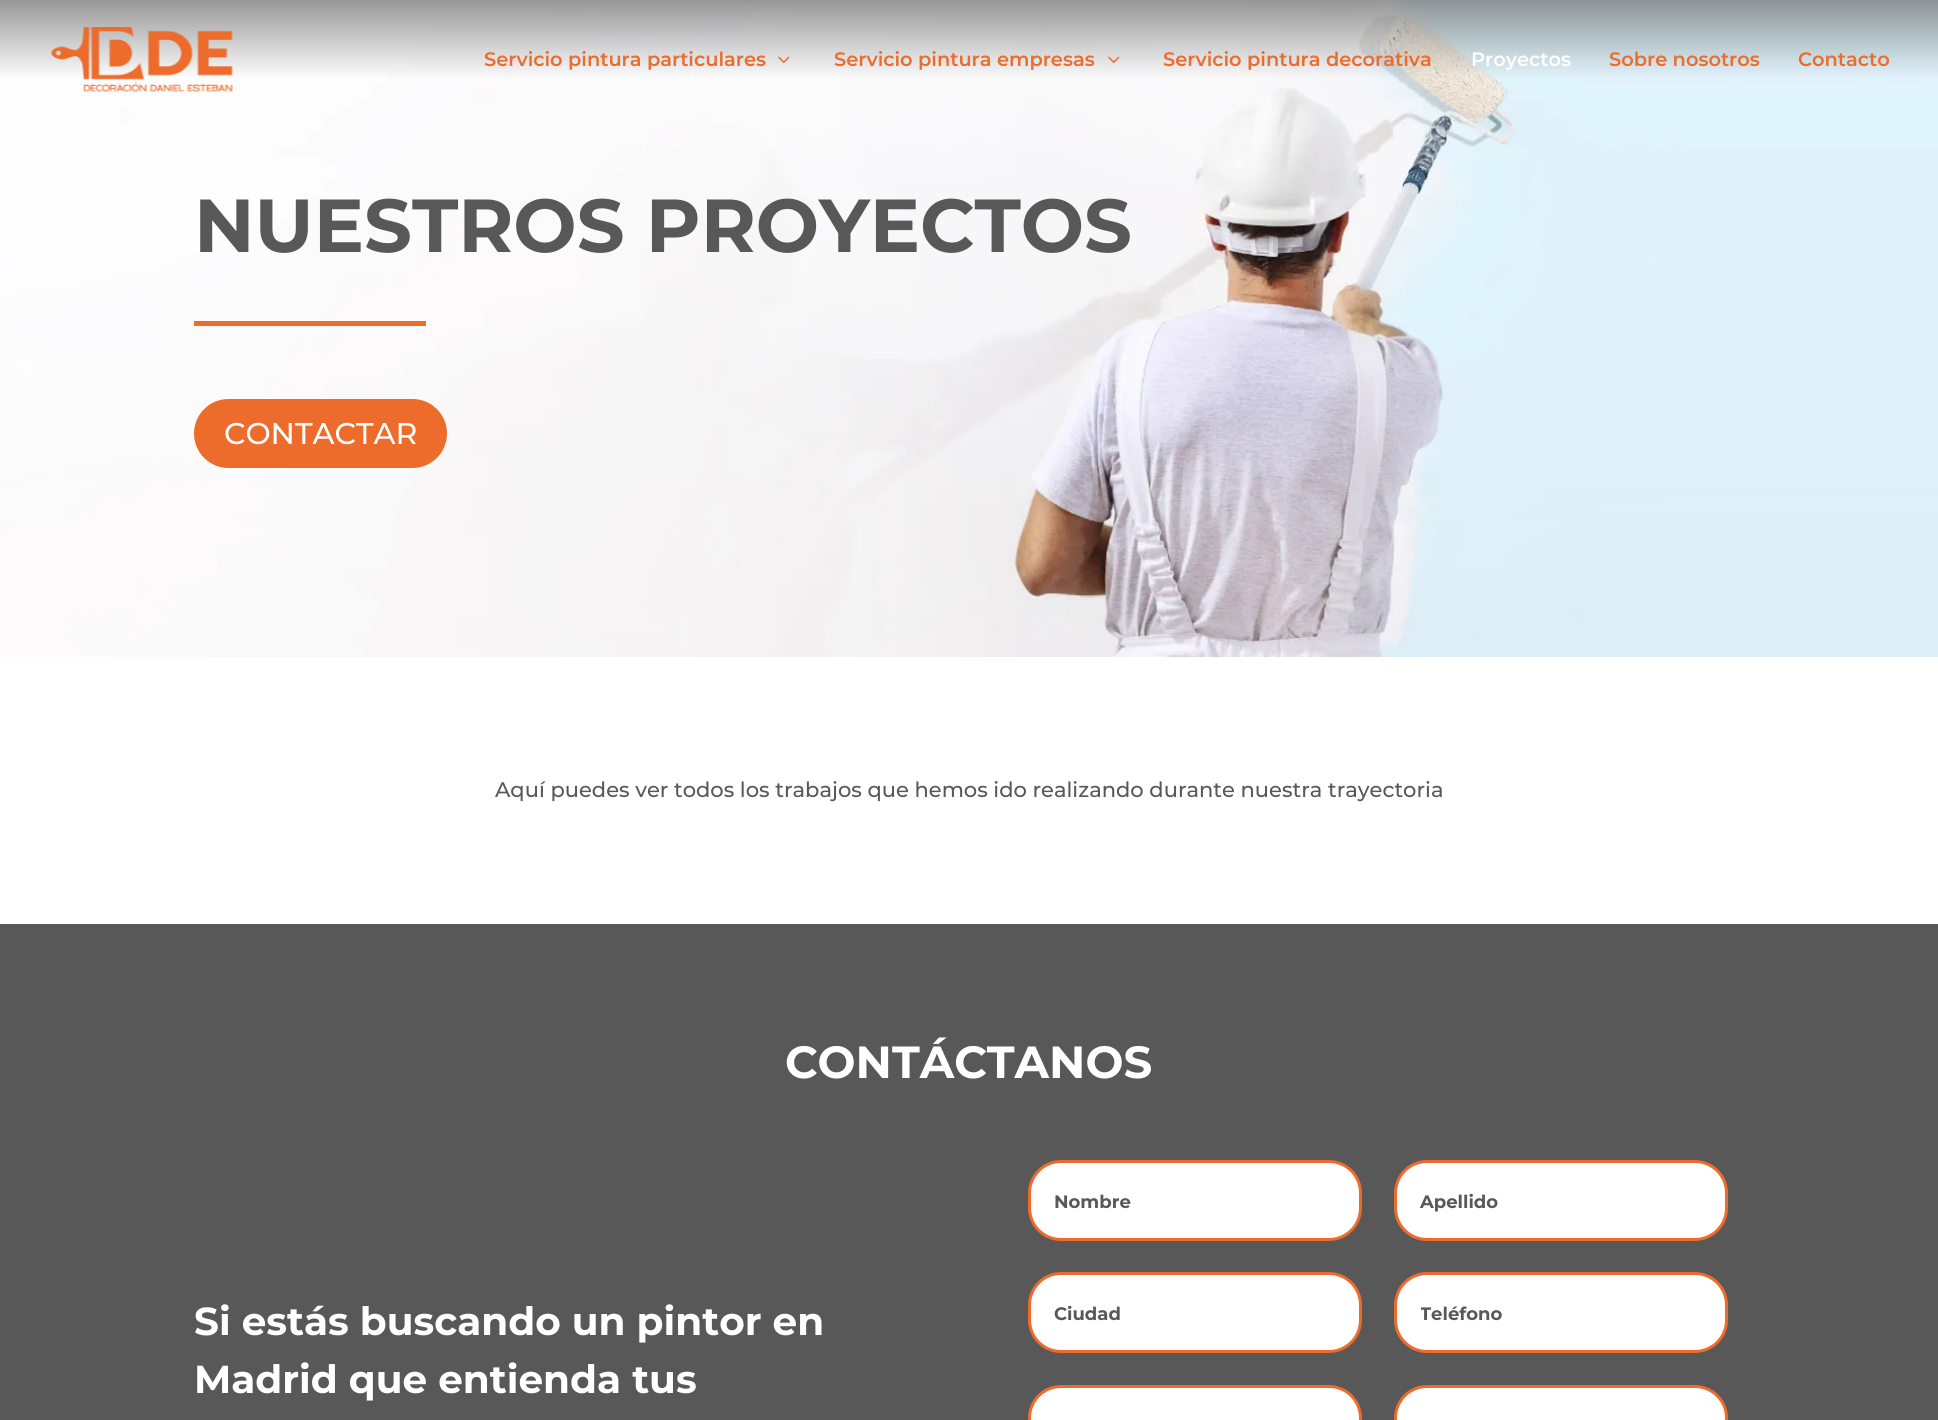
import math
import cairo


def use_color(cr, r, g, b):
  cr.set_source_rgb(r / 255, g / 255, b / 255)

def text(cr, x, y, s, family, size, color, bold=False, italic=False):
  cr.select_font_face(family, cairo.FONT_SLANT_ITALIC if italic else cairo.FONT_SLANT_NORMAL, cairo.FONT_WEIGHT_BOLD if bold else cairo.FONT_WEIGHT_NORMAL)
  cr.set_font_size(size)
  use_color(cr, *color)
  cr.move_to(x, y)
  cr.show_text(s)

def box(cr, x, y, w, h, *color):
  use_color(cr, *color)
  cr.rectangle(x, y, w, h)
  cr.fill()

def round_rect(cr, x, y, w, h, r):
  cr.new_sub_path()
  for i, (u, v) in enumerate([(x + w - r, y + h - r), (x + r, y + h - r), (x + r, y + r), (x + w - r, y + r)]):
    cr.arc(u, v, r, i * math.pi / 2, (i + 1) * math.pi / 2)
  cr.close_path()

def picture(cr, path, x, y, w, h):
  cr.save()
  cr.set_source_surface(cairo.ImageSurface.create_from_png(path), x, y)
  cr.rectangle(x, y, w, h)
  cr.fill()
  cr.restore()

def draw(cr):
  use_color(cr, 255, 255, 255)
  cr.paint()
  picture(cr, "img_04.png", 0, 0, 1938, 657)
  picture(cr, "img_01.png", 50, 27, 183, 65)
  picture(cr, "img_02.png", 778, 56, 12, 7)
  picture(cr, "img_03.png", 1108, 56, 12, 7)
  box(cr, 194, 321, 232, 5, 237, 107, 43)
  round_rect(cr, 194, 399, 253, 69, 34.5)
  cr.fill()
  box(cr, 0, 924, 1938, 496, 88, 88, 88)
  use_color(cr, 255, 255, 255)
  round_rect(cr, 1029.5, 1161.5, 331, 78, 31.5)
  cr.fill_preserve()
  use_color(cr, 237, 107, 43)
  cr.set_line_width(3)
  cr.stroke()
  use_color(cr, 255, 255, 255)
  round_rect(cr, 1395.5, 1161.5, 331, 78, 31.5)
  cr.fill_preserve()
  use_color(cr, 237, 107, 43)
  cr.stroke()
  use_color(cr, 255, 255, 255)
  round_rect(cr, 1029.5, 1273.5, 331, 78, 31.5)
  cr.fill_preserve()
  use_color(cr, 237, 107, 43)
  cr.stroke()
  use_color(cr, 255, 255, 255)
  round_rect(cr, 1395.5, 1273.5, 331, 78, 31.5)
  cr.fill_preserve()
  use_color(cr, 237, 107, 43)
  cr.stroke()
  use_color(cr, 255, 255, 255)
  round_rect(cr, 1029.5, 1386.5, 331, 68, 31.5)
  cr.fill_preserve()
  use_color(cr, 237, 107, 43)
  cr.stroke()
  use_color(cr, 255, 255, 255)
  round_rect(cr, 1395.5, 1386.5, 331, 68, 31.5)
  cr.fill_preserve()
  use_color(cr, 237, 107, 43)
  cr.stroke()
  text(cr, 484, 66, "Servicio pintura particulares", "Montserrat SemiBold", 19.4, (237, 107, 43))
  text(cr, 834, 66, "Servicio pintura empresas", "Montserrat SemiBold", 19.4, (237, 107, 43))
  text(cr, 1163, 66, "Servicio pintura decorativa", "Montserrat SemiBold", 19.4, (237, 107, 43))
  text(cr, 1471, 66, "Proyectos", "Montserrat SemiBold", 19.4, (255, 255, 255))
  text(cr, 1609, 66, "Sobre nosotros", "Montserrat SemiBold", 19.4, (237, 107, 43))
  text(cr, 1798, 66, "Contacto", "Montserrat SemiBold", 19.4, (237, 107, 43))
  text(cr, 194, 252, "NUESTROS PROYECTOS", "Montserrat", 75, (88, 88, 88), bold=True)
  text(cr, 224, 444, "CONTACTAR", "Montserrat Medium", 30, (255, 255, 255))
  text(cr, 495, 797, "Aquí puedes ver todos los trabajos que hemos ido realizando durante nuestra trayectoria", "Montserrat Medium", 21, (88, 88, 88))
  text(cr, 785, 1078, "CONTÁCTANOS", "Montserrat", 45, (255, 255, 255), bold=True)
  text(cr, 1054, 1208, "Nombre", "Montserrat", 18, (88, 88, 88), bold=True)
  text(cr, 1420, 1208, "Apellido", "Montserrat", 18, (88, 88, 88), bold=True)
  text(cr, 1054, 1320, "Ciudad", "Montserrat", 18, (88, 88, 88), bold=True)
  cr.save()
  cr.rectangle(1421, 1302, 280, 23)
  cr.clip()
  text(cr, 1420, 1320, "Teléfono", "Montserrat", 18, (88, 88, 88), bold=True)
  cr.restore()
  text(cr, 194, 1335, "Si estás buscando un pintor en", "Montserrat", 39, (255, 255, 255), bold=True)
  text(cr, 194, 1393, "Madrid que entienda tus", "Montserrat", 39, (255, 255, 255), bold=True)


surface = cairo.ImageSurface(cairo.FORMAT_RGB24, 1938, 1420)
cr = cairo.Context(surface)
options = cairo.FontOptions()
options.set_hint_metrics(cairo.HINT_METRICS_OFF)
options.set_hint_style(cairo.HINT_STYLE_NONE)
cr.set_font_options(options)
cr.set_miter_limit(4)
draw(cr)
surface.write_to_png("out.png")
